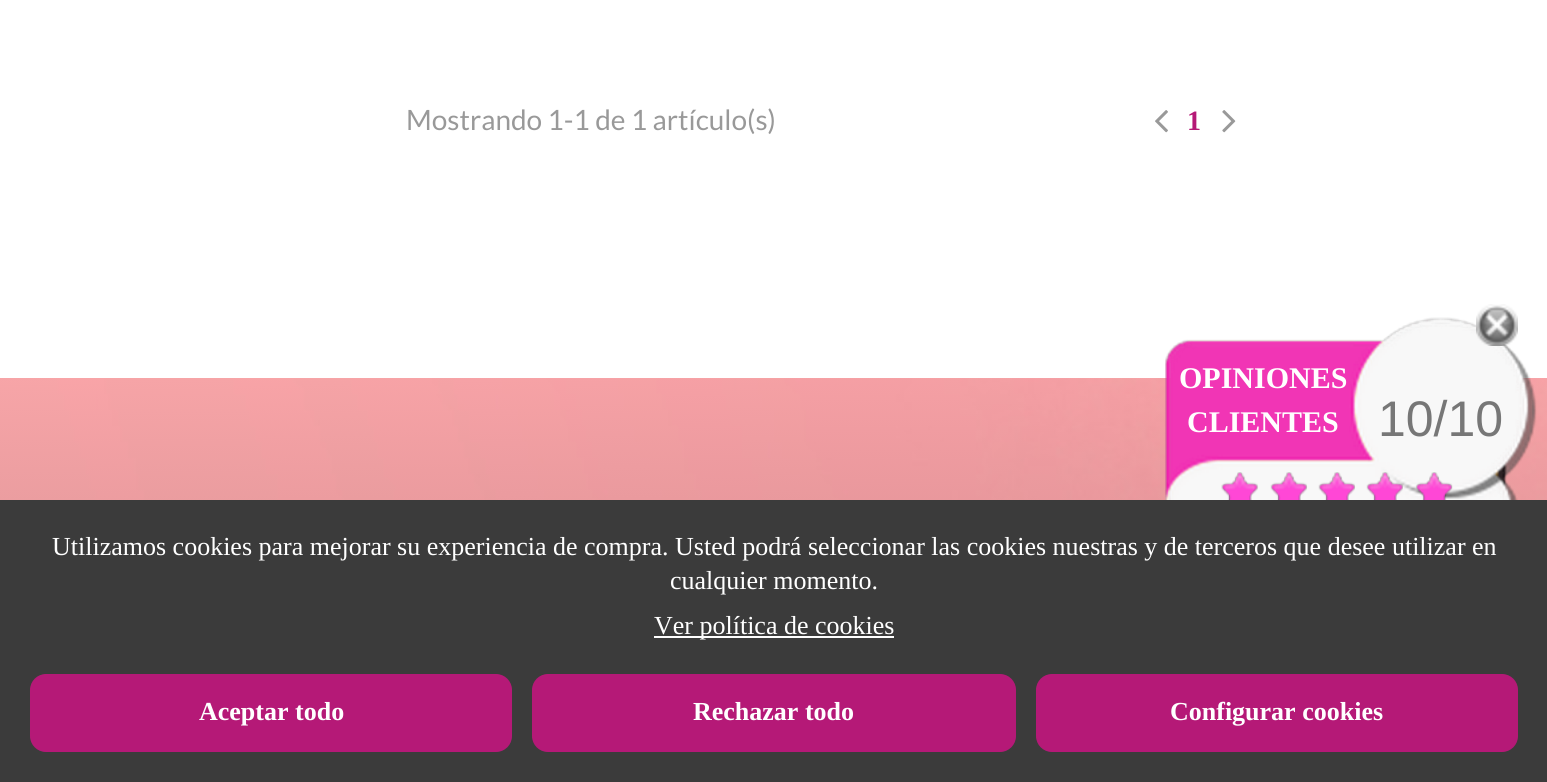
import math
import cairo


def use_color(cr, r, g, b):
  cr.set_source_rgb(r / 255, g / 255, b / 255)

def text(cr, x, y, s, family, size, color, bold=False, italic=False):
  cr.select_font_face(family, cairo.FONT_SLANT_ITALIC if italic else cairo.FONT_SLANT_NORMAL, cairo.FONT_WEIGHT_BOLD if bold else cairo.FONT_WEIGHT_NORMAL)
  cr.set_font_size(size)
  use_color(cr, *color)
  cr.move_to(x, y)
  cr.show_text(s)

def box(cr, x, y, w, h, *color):
  use_color(cr, *color)
  cr.rectangle(x, y, w, h)
  cr.fill()

def round_rect(cr, x, y, w, h, r):
  cr.new_sub_path()
  for i, (u, v) in enumerate([(x + w - r, y + h - r), (x + r, y + h - r), (x + r, y + r), (x + w - r, y + r)]):
    cr.arc(u, v, r, i * math.pi / 2, (i + 1) * math.pi / 2)
  cr.close_path()

def picture(cr, path, x, y, w, h):
  cr.save()
  cr.set_source_surface(cairo.ImageSurface.create_from_png(path), x, y)
  cr.rectangle(x, y, w, h)
  cr.fill()
  cr.restore()

def draw(cr):
  use_color(cr, 255, 255, 255)
  cr.paint()
  picture(cr, "img_01.png", 1155, 110, 13, 23)
  picture(cr, "img_02.png", 1222, 110, 14, 23)
  picture(cr, "img_03.png", 0, 378, 1547, 122)
  picture(cr, "img_05.png", 1165, 317, 372, 183)
  picture(cr, "img_04.png", 1476, 304, 42, 42)
  picture(cr, "img_06.png", 1221, 472, 232, 28)
  box(cr, 0, 500, 1547, 282, 59, 59, 59)
  box(cr, 654, 636, 240, 2, 255, 255, 255)
  use_color(cr, 181, 25, 119)
  round_rect(cr, 31, 675, 480, 76, 15)
  cr.fill_preserve()
  cr.stroke()
  round_rect(cr, 533, 675, 482, 76, 15)
  cr.fill_preserve()
  cr.stroke()
  round_rect(cr, 1037, 675, 480, 76, 15)
  cr.fill_preserve()
  cr.stroke()
  text(cr, 406, 130, "Mostrando 1-1 de 1 artículo(s)", "Lato", 28, (153, 153, 153))
  text(cr, 1187, 130, "1", "Liberation Serif", 28, (181, 25, 119), bold=True)
  text(cr, 1179, 388, "OPINIONES", "Liberation Serif", 30, (255, 255, 255), bold=True)
  text(cr, 1187, 432, "CLIENTES", "Liberation Serif", 30, (255, 255, 255), bold=True)
  text(cr, 1378, 436, "10/10", "Liberation Sans", 50, (119, 119, 119))
  text(cr, 52, 555, "Utilizamos cookies para mejorar su experiencia de compra. Usted podrá seleccionar las cookies nuestras y de terceros que desee utilizar en", "Liberation Serif", 26, (255, 255, 255))
  text(cr, 670, 589, "cualquier momento.", "Liberation Serif", 26, (255, 255, 255))
  text(cr, 654, 634, "Ver política de cookies", "Liberation Serif", 26, (255, 255, 255))
  text(cr, 199, 720, "Aceptar todo", "Liberation Serif", 26, (255, 255, 255), bold=True)
  text(cr, 693, 720, "Rechazar todo", "Liberation Serif", 26, (255, 255, 255), bold=True)
  text(cr, 1170, 720, "Configurar cookies", "Liberation Serif", 26, (255, 255, 255), bold=True)


surface = cairo.ImageSurface(cairo.FORMAT_RGB24, 1547, 782)
cr = cairo.Context(surface)
options = cairo.FontOptions()
options.set_hint_metrics(cairo.HINT_METRICS_OFF)
options.set_hint_style(cairo.HINT_STYLE_NONE)
cr.set_font_options(options)
cr.set_miter_limit(4)
draw(cr)
surface.write_to_png("out.png")
